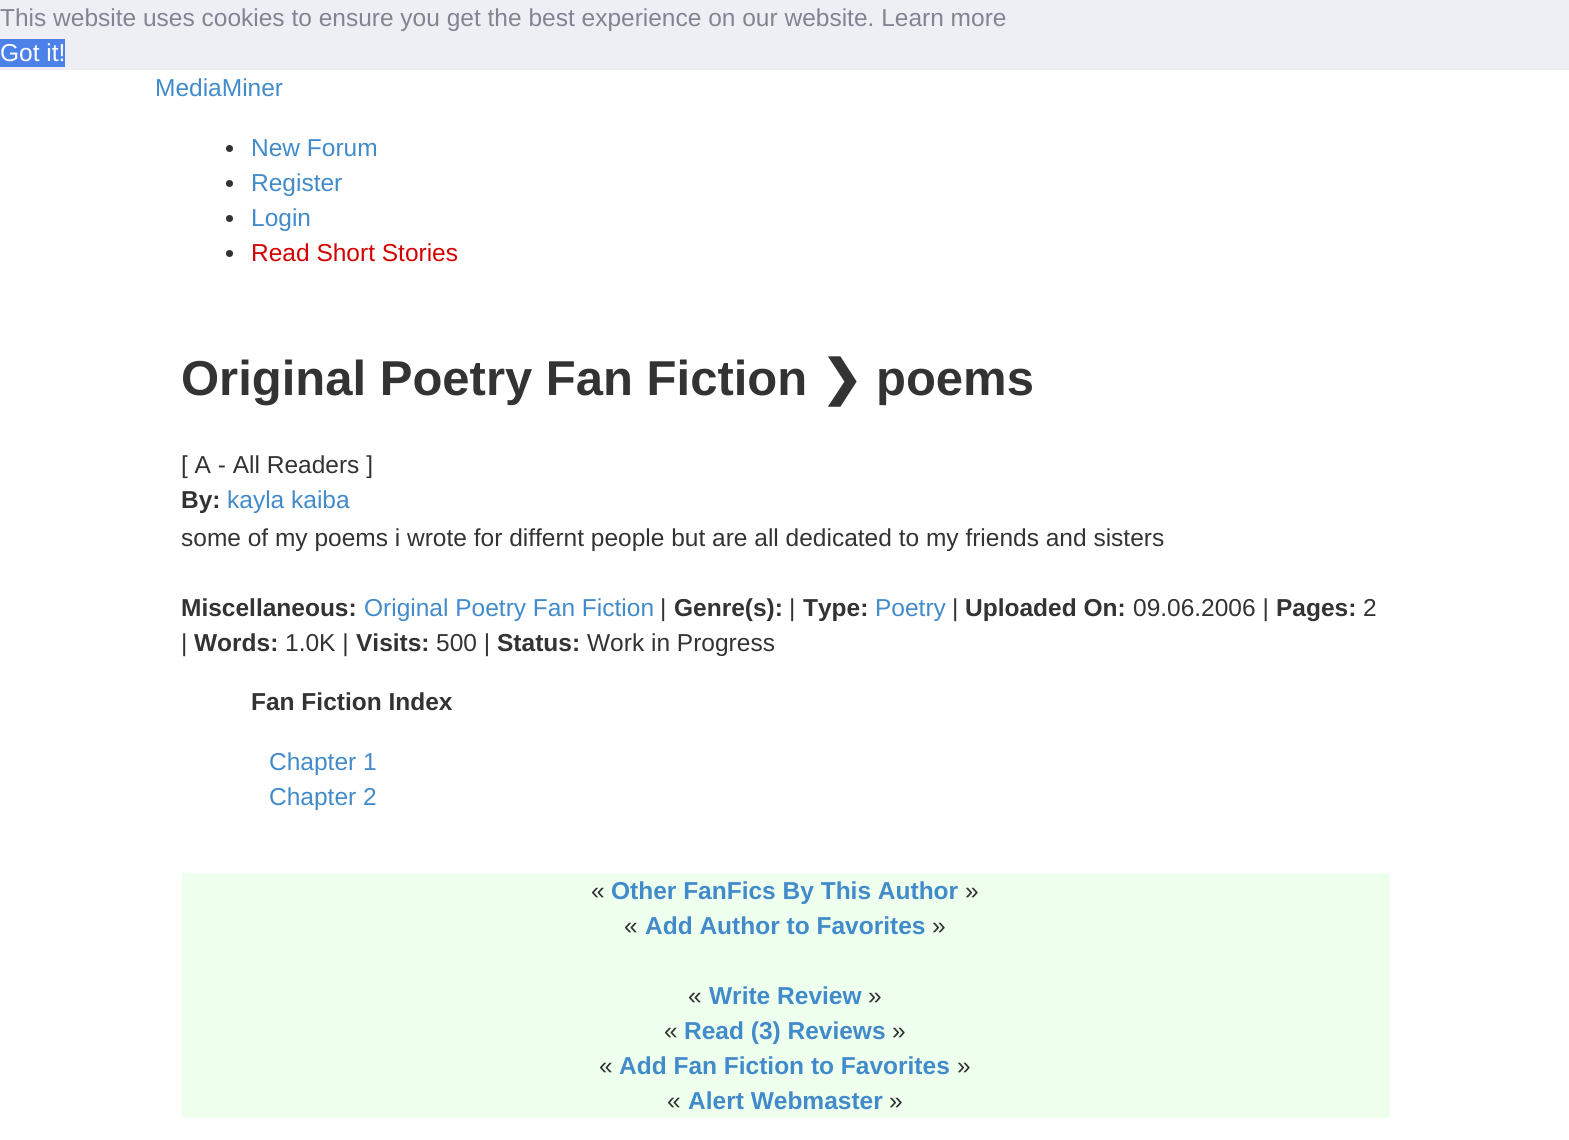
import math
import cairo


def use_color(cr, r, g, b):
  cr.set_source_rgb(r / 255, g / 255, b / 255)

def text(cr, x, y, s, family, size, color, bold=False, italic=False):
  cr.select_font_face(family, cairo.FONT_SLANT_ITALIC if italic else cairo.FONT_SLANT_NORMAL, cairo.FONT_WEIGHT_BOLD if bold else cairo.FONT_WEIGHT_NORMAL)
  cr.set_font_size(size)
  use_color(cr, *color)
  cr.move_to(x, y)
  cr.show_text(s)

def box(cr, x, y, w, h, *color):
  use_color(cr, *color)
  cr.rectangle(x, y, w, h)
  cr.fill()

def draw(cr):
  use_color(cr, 255, 255, 255)
  cr.paint()
  box(cr, 0, 0, 1569, 70, 237, 239, 245)
  box(cr, 0, 39, 65, 28, 75, 129, 232)
  use_color(cr, 51, 51, 51)
  cr.arc(229.5, 148.5, 3.5, 0, 2 * math.pi)
  cr.fill()
  cr.arc(229.5, 183.5, 3.5, 0, 2 * math.pi)
  cr.fill()
  cr.arc(229.5, 218.5, 3.5, 0, 2 * math.pi)
  cr.fill()
  cr.arc(229.5, 253.5, 3.5, 0, 2 * math.pi)
  cr.fill()
  box(cr, 182, 873, 1208, 245, 238, 255, 238)
  text(cr, 0, 26, "This website uses cookies to ensure you get the best experience on our website. Learn more", "Liberation Sans", 24.5, (131, 131, 145))
  text(cr, 0, 61, "Got it!", "Liberation Sans", 24.5, (255, 255, 255))
  text(cr, 155, 96, "MediaMiner", "Liberation Sans", 24.5, (66, 139, 202))
  text(cr, 251, 156, "New Forum", "Liberation Sans", 24.5, (66, 139, 202))
  text(cr, 251, 191, "Register", "Liberation Sans", 24.5, (66, 139, 202))
  text(cr, 251, 226, "Login", "Liberation Sans", 24.5, (66, 139, 202))
  text(cr, 251, 261, "Read Short Stories", "Liberation Sans", 24.5, (211, 0, 0))
  text(cr, 181, 395, "Original Poetry Fan Fiction", "Liberation Sans", 49, (51, 51, 51), bold=True)
  text(cr, 821, 395, "❯", "DejaVu Sans", 49, (51, 51, 51), bold=True)
  text(cr, 876, 395, "poems", "Liberation Sans", 49, (51, 51, 51), bold=True)
  text(cr, 181, 473, "[ A - All Readers ]", "Liberation Sans", 24.5, (51, 51, 51))
  text(cr, 181, 508, "By:", "Liberation Sans", 24.5, (51, 51, 51), bold=True)
  text(cr, 227, 508, "kayla kaiba", "Liberation Sans", 24.5, (66, 139, 202))
  text(cr, 181, 546, "some of my poems i wrote for differnt people but are all dedicated to my friends and sisters", "Liberation Sans", 24.5, (51, 51, 51))
  text(cr, 181, 616, "Miscellaneous:", "Liberation Sans", 24.5, (51, 51, 51), bold=True)
  text(cr, 364, 616, "Original Poetry Fan Fiction", "Liberation Sans", 24.5, (66, 139, 202))
  text(cr, 660, 616, "|", "Liberation Sans", 24.5, (51, 51, 51))
  text(cr, 674, 616, "Genre(s):", "Liberation Sans", 24.5, (51, 51, 51), bold=True)
  text(cr, 789, 616, "|", "Liberation Sans", 24.5, (51, 51, 51))
  text(cr, 803, 616, "Type:", "Liberation Sans", 24.5, (51, 51, 51), bold=True)
  text(cr, 875, 616, "Poetry", "Liberation Sans", 24.5, (66, 139, 202))
  text(cr, 952, 616, "|", "Liberation Sans", 24.5, (51, 51, 51))
  text(cr, 965, 616, "Uploaded On:", "Liberation Sans", 24.5, (51, 51, 51), bold=True)
  text(cr, 1133, 616, "09.06.2006 |", "Liberation Sans", 24.5, (51, 51, 51))
  text(cr, 1276, 616, "Pages:", "Liberation Sans", 24.5, (51, 51, 51), bold=True)
  text(cr, 1363, 616, "2", "Liberation Sans", 24.5, (51, 51, 51))
  text(cr, 181, 651, "|", "Liberation Sans", 24.5, (51, 51, 51))
  text(cr, 194, 651, "Words:", "Liberation Sans", 24.5, (51, 51, 51), bold=True)
  text(cr, 285, 651, "1.0K |", "Liberation Sans", 24.5, (51, 51, 51))
  text(cr, 356, 651, "Visits:", "Liberation Sans", 24.5, (51, 51, 51), bold=True)
  text(cr, 436, 651, "500 |", "Liberation Sans", 24.5, (51, 51, 51))
  text(cr, 497, 651, "Status:", "Liberation Sans", 24.5, (51, 51, 51), bold=True)
  text(cr, 587, 651, "Work in Progress", "Liberation Sans", 24.5, (51, 51, 51))
  text(cr, 251, 710, "Fan Fiction Index", "Liberation Sans", 24.5, (51, 51, 51), bold=True)
  text(cr, 269, 770, "Chapter 1", "Liberation Sans", 24.5, (66, 139, 202))
  text(cr, 269, 805, "Chapter 2", "Liberation Sans", 24.5, (66, 139, 202))
  text(cr, 591, 899, "«", "Liberation Sans", 24.5, (51, 51, 51))
  text(cr, 611, 899, "Other FanFics By This Author", "Liberation Sans", 24.5, (66, 139, 202), bold=True)
  text(cr, 965, 899, "»", "Liberation Sans", 24.5, (51, 51, 51))
  text(cr, 624, 934, "«", "Liberation Sans", 24.5, (51, 51, 51))
  text(cr, 645, 934, "Add Author to Favorites", "Liberation Sans", 24.5, (66, 139, 202), bold=True)
  text(cr, 932, 934, "»", "Liberation Sans", 24.5, (51, 51, 51))
  text(cr, 688, 1004, "«", "Liberation Sans", 24.5, (51, 51, 51))
  text(cr, 709, 1004, "Write Review", "Liberation Sans", 24.5, (66, 139, 202), bold=True)
  text(cr, 868, 1004, "»", "Liberation Sans", 24.5, (51, 51, 51))
  text(cr, 664, 1039, "«", "Liberation Sans", 24.5, (51, 51, 51))
  text(cr, 684, 1039, "Read (3) Reviews", "Liberation Sans", 24.5, (66, 139, 202), bold=True)
  text(cr, 892, 1039, "»", "Liberation Sans", 24.5, (51, 51, 51))
  text(cr, 599, 1074, "«", "Liberation Sans", 24.5, (51, 51, 51))
  text(cr, 619, 1074, "Add Fan Fiction to Favorites", "Liberation Sans", 24.5, (66, 139, 202), bold=True)
  text(cr, 957, 1074, "»", "Liberation Sans", 24.5, (51, 51, 51))
  text(cr, 667, 1109, "«", "Liberation Sans", 24.5, (51, 51, 51))
  text(cr, 688, 1109, "Alert Webmaster", "Liberation Sans", 24.5, (66, 139, 202), bold=True)
  text(cr, 889, 1109, "»", "Liberation Sans", 24.5, (51, 51, 51))


surface = cairo.ImageSurface(cairo.FORMAT_RGB24, 1569, 1140)
cr = cairo.Context(surface)
options = cairo.FontOptions()
options.set_hint_metrics(cairo.HINT_METRICS_OFF)
options.set_hint_style(cairo.HINT_STYLE_NONE)
cr.set_font_options(options)
cr.set_miter_limit(4)
draw(cr)
surface.write_to_png("out.png")
